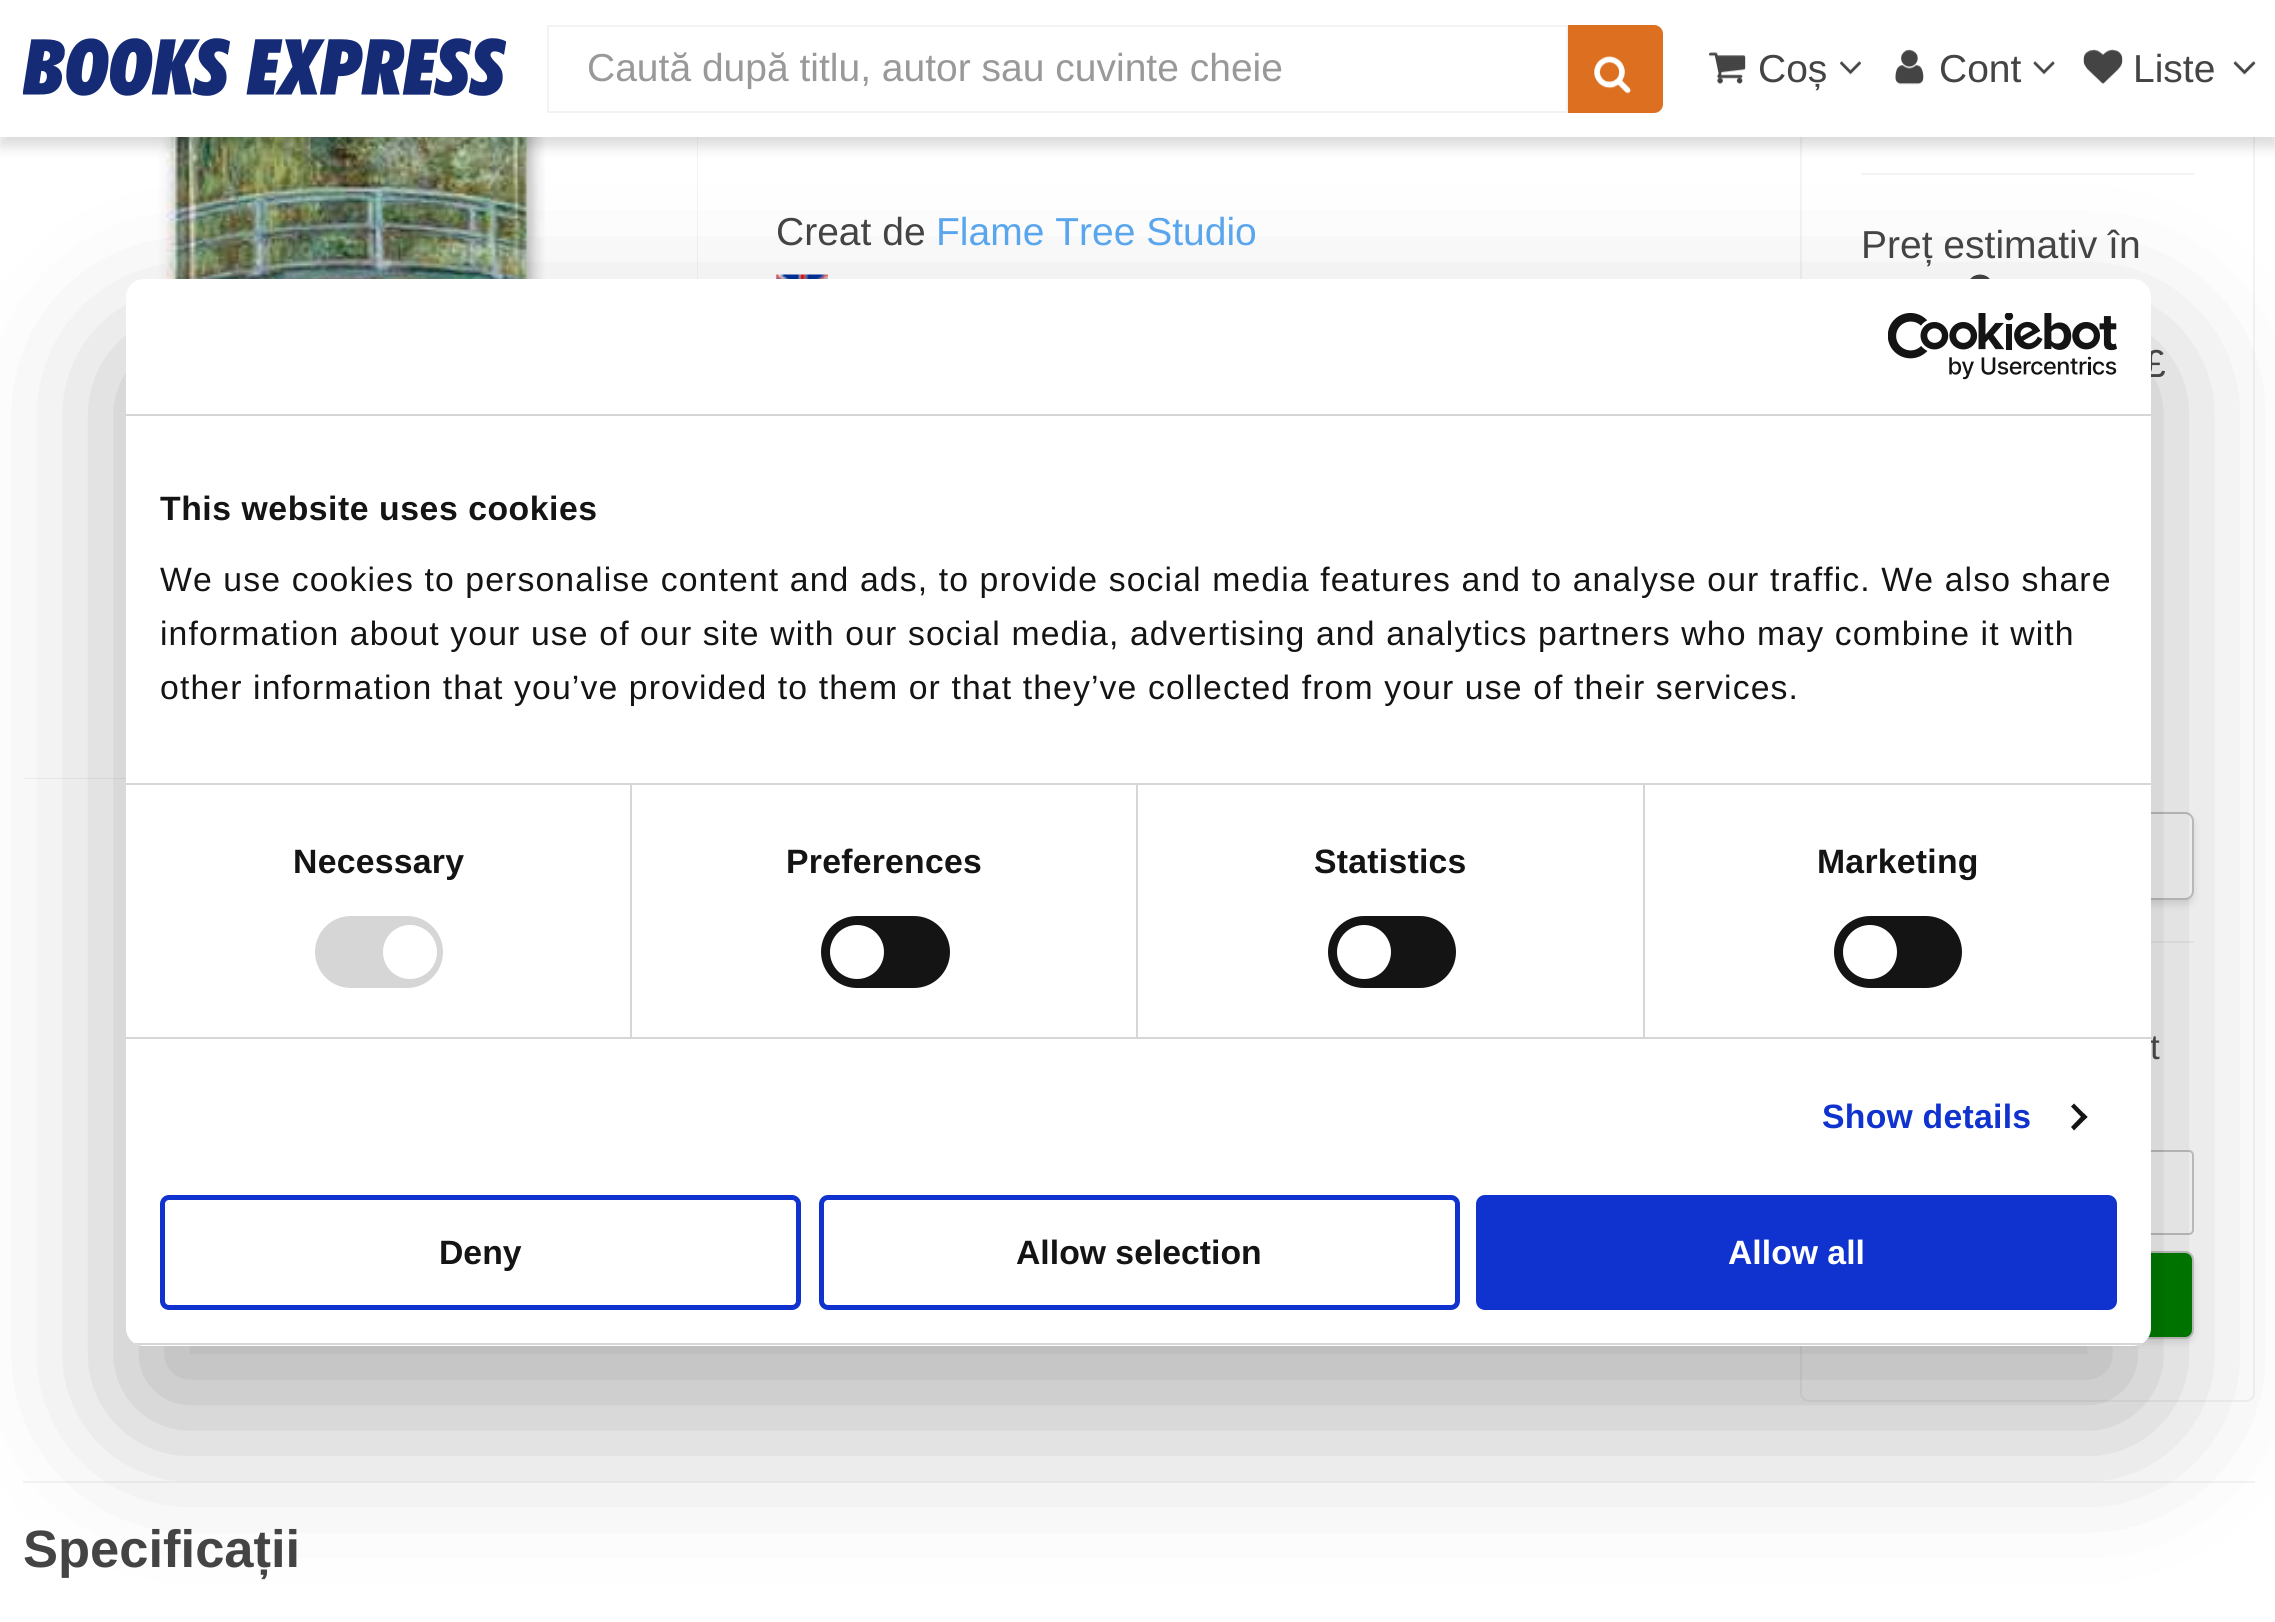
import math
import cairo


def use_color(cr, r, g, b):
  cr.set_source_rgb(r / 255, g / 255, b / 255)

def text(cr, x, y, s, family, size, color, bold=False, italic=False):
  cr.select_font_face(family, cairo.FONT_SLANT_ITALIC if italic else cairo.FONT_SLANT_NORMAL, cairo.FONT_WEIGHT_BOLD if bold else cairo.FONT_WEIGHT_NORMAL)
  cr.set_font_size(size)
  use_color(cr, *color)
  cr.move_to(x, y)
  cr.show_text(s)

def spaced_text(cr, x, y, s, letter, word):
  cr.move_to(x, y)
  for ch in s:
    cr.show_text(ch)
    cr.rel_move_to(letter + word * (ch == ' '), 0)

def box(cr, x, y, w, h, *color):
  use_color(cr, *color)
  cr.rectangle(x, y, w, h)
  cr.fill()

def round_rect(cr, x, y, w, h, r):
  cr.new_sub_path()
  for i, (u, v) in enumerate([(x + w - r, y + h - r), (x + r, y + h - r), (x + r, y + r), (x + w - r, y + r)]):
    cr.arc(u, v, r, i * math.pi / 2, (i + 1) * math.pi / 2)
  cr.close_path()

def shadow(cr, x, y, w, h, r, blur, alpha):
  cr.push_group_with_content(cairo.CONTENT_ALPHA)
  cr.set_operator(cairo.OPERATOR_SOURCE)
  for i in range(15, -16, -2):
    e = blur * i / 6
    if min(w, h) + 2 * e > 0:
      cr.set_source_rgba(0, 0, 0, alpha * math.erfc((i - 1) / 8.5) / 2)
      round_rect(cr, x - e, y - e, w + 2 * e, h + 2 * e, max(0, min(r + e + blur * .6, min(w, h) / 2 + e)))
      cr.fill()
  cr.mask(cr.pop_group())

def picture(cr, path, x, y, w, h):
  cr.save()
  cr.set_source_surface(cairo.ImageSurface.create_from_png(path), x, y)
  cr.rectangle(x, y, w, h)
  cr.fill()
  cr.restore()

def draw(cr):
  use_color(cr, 255, 255, 255)
  cr.paint()
  gradient = cairo.LinearGradient(-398, 1034, 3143, 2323)
  gradient.add_color_stop_rgba(0.08, 0.925, 0.925, 0.925, 1)
  gradient.add_color_stop_rgba(0.18, 0.961, 0.961, 0.961, 1)
  gradient.add_color_stop_rgba(0.33, 0.925, 0.925, 0.925, 1)
  cr.set_source(gradient)
  round_rect(cr, 23, -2, 675, 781, 2)
  cr.fill()
  picture(cr, "img_09.png", 23, 137, 674, 642)
  round_rect(cr, 1801, -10, 453, 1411, 8)
  use_color(cr, 243, 243, 243)
  cr.stroke()
  use_color(cr, 0, 0, 0)
  shadow(cr, 0, 9, 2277, 137, 0, 7, 0.15)
  box(cr, 0, 0, 2275, 137, 255, 255, 255)
  picture(cr, "img_01.png", 23, 38, 483, 58)
  use_color(cr, 220, 111, 32)
  cr.new_path()
  cr.move_to(1564, 25)
  cr.line_to(1654, 25)
  cr.curve_to(1659, 25, 1663, 29, 1663, 34)
  cr.line_to(1663, 104)
  cr.curve_to(1663, 109, 1659, 113, 1654, 113)
  cr.line_to(1564, 113)
  cr.close_path()
  cr.fill()
  box(cr, 1564, 27, 2, 84, 255, 255, 255)
  cr.rectangle(548, 26, 1019, 86)
  use_color(cr, 243, 243, 243)
  cr.stroke()
  picture(cr, "img_02.png", 1594, 56, 37, 38)
  picture(cr, "img_03.png", 1709, 52, 37, 33)
  picture(cr, "img_04.png", 1840, 61, 21, 14)
  picture(cr, "img_05.png", 1895, 49, 29, 36)
  picture(cr, "img_06.png", 2033, 61, 22, 14)
  picture(cr, "img_07.png", 2083, 49, 40, 35)
  picture(cr, "img_08.png", 2233, 61, 23, 14)
  picture(cr, "img_10.png", 776, 274, 52, 5)
  box(cr, 1861, 173, 333, 2, 243, 243, 243)
  picture(cr, "img_11.png", 1970, 274, 20, 5)
  use_color(cr, 0, 0, 0)
  shadow(cr, 1861, 817, 333, 88, 9, 3.5, 0.1)
  use_color(cr, 255, 255, 255)
  round_rect(cr, 1862, 813, 331, 86, 8)
  cr.fill_preserve()
  use_color(cr, 199, 199, 199)
  cr.stroke()
  box(cr, 2151, 941, 43, 2, 243, 243, 243)
  round_rect(cr, 2035, 1151, 158, 83, 4)
  use_color(cr, 199, 199, 199)
  cr.stroke()
  use_color(cr, 0, 0, 0)
  shadow(cr, 1991, 1256, 203, 87, 9, 3.5, 0.1)
  use_color(cr, 0, 128, 0)
  round_rect(cr, 1992, 1252, 201, 86, 8)
  cr.fill_preserve()
  use_color(cr, 199, 199, 199)
  cr.stroke()
  box(cr, 23, 1481, 2232, 2, 243, 243, 243)
  use_color(cr, 0, 0, 0)
  shadow(cr, 126, 351, 2025, 1067, 18, 76.5, 0.3)
  text(cr, 587, 81, "Caută după titlu, autor sau cuvinte cheie", "Liberation Sans", 39, (153, 153, 153))
  text(cr, 1758, 82, "Coș", "Liberation Sans", 39, (68, 68, 68))
  text(cr, 1939, 82, "Cont", "Liberation Sans", 39, (68, 68, 68))
  text(cr, 2133, 82, "Liste", "Liberation Sans", 39, (68, 68, 68))
  text(cr, 776, 245, "Creat de", "Liberation Sans", 39, (68, 68, 68))
  text(cr, 936, 245, "Flame Tree Studio", "Liberation Sans", 39, (90, 166, 237))
  text(cr, 1861, 258, "Preț estimativ în", "Liberation Sans", 39, (68, 68, 68))
  text(cr, 2144, 377, "£", "Liberation Sans", 39, (68, 68, 68))
  text(cr, 2150, 1059, "t", "Liberation Sans", 35, (68, 68, 68))
  text(cr, 23, 1567, "Specificații", "Liberation Sans", 52.5, (68, 68, 68), bold=True)
  use_color(cr, 255, 255, 255)
  round_rect(cr, 126, 279, 2025, 1067, 18)
  cr.fill()
  box(cr, 126, 414, 2025, 2, 214, 214, 214)
  picture(cr, "img_12.png", 1888, 313, 229, 67)
  box(cr, 126, 783, 2025, 2, 214, 214, 214)
  cr.set_font_size(33.75)
  use_color(cr, 20, 20, 20)
  spaced_text(cr, 160, 520, "This website uses cookies", 0.55, 0)
  cr.select_font_face("Liberation Sans")
  spaced_text(cr, 160, 591, "We use cookies to personalise content and ads, to provide social media features and to analyse our traffic. We also share", 1.12, 0)
  spaced_text(cr, 160, 645, "information about your use of our site with our social media, advertising and analytics partners who may combine it with", 1.12, 0)
  spaced_text(cr, 160, 699, "other information that you’ve provided to them or that they’ve collected from your use of their services.", 1.12, 0)
  box(cr, 126, 1037, 2025, 2, 214, 214, 214)
  box(cr, 630, 785, 2, 252, 214, 214, 214)
  cr.select_font_face("Liberation Sans", cairo.FONT_SLANT_NORMAL, cairo.FONT_WEIGHT_BOLD)
  use_color(cr, 20, 20, 20)
  spaced_text(cr, 293, 873, "Necessary", 0.25, 0)
  use_color(cr, 214, 214, 214)
  round_rect(cr, 315, 916, 128, 72, 36)
  cr.fill()
  use_color(cr, 255, 255, 255)
  cr.arc(410, 952, 27, 0, 2 * math.pi)
  cr.fill()
  box(cr, 1136, 785, 2, 252, 214, 214, 214)
  use_color(cr, 20, 20, 20)
  spaced_text(cr, 786, 873, "Preferences", 0.25, 0)
  round_rect(cr, 821, 916, 129, 72, 36)
  cr.fill()
  use_color(cr, 255, 255, 255)
  cr.arc(857, 952, 27, 0, 2 * math.pi)
  cr.fill()
  box(cr, 1643, 785, 2, 252, 214, 214, 214)
  use_color(cr, 20, 20, 20)
  spaced_text(cr, 1314, 873, "Statistics", 0.25, 0)
  round_rect(cr, 1328, 916, 128, 72, 36)
  cr.fill()
  use_color(cr, 255, 255, 255)
  cr.arc(1364, 952, 27, 0, 2 * math.pi)
  cr.fill()
  use_color(cr, 20, 20, 20)
  spaced_text(cr, 1817, 873, "Marketing", 0.25, 0)
  round_rect(cr, 1834, 916, 128, 72, 36)
  cr.fill()
  use_color(cr, 255, 255, 255)
  cr.arc(1870, 952, 27, 0, 2 * math.pi)
  cr.fill()
  use_color(cr, 16, 50, 207)
  spaced_text(cr, 1822, 1128, "Show details", 0.25, 0)
  use_color(cr, 20, 20, 20)
  cr.new_path()
  cr.move_to(2074, 1103.5)
  cr.line_to(2087.5, 1117)
  cr.line_to(2084, 1120)
  cr.line_to(2071, 1106.5)
  cr.close_path()
  cr.fill()
  cr.new_path()
  cr.move_to(2084, 1113.5)
  cr.line_to(2087.5, 1117)
  cr.line_to(2074, 1130.5)
  cr.line_to(2071, 1127)
  cr.close_path()
  cr.fill()
  cr.save()
  round_rect(cr, 126, 279, 2025, 1067, 18)
  cr.clip()
  box(cr, 126, 1343, 2025, 2, 214, 214, 214)
  cr.restore()
  round_rect(cr, 162.5, 1197.5, 636, 110, 6.5)
  use_color(cr, 16, 50, 207)
  cr.set_line_width(5)
  cr.stroke()
  text(cr, 439, 1264, "Deny", "Liberation Sans", 33.75, (20, 20, 20), bold=True)
  round_rect(cr, 821.5, 1197.5, 636, 110, 6.5)
  use_color(cr, 16, 50, 207)
  cr.stroke()
  text(cr, 1016, 1264, "Allow selection", "Liberation Sans", 33.75, (20, 20, 20), bold=True)
  use_color(cr, 16, 50, 207)
  round_rect(cr, 1478.5, 1197.5, 636, 110, 6.5)
  cr.fill_preserve()
  cr.stroke()
  text(cr, 1728, 1264, "Allow all", "Liberation Sans", 33.75, (255, 255, 255), bold=True)


surface = cairo.ImageSurface(cairo.FORMAT_RGB24, 2275, 1622)
cr = cairo.Context(surface)
options = cairo.FontOptions()
options.set_hint_metrics(cairo.HINT_METRICS_OFF)
options.set_hint_style(cairo.HINT_STYLE_NONE)
cr.set_font_options(options)
cr.set_miter_limit(4)
draw(cr)
surface.write_to_png("out.png")
